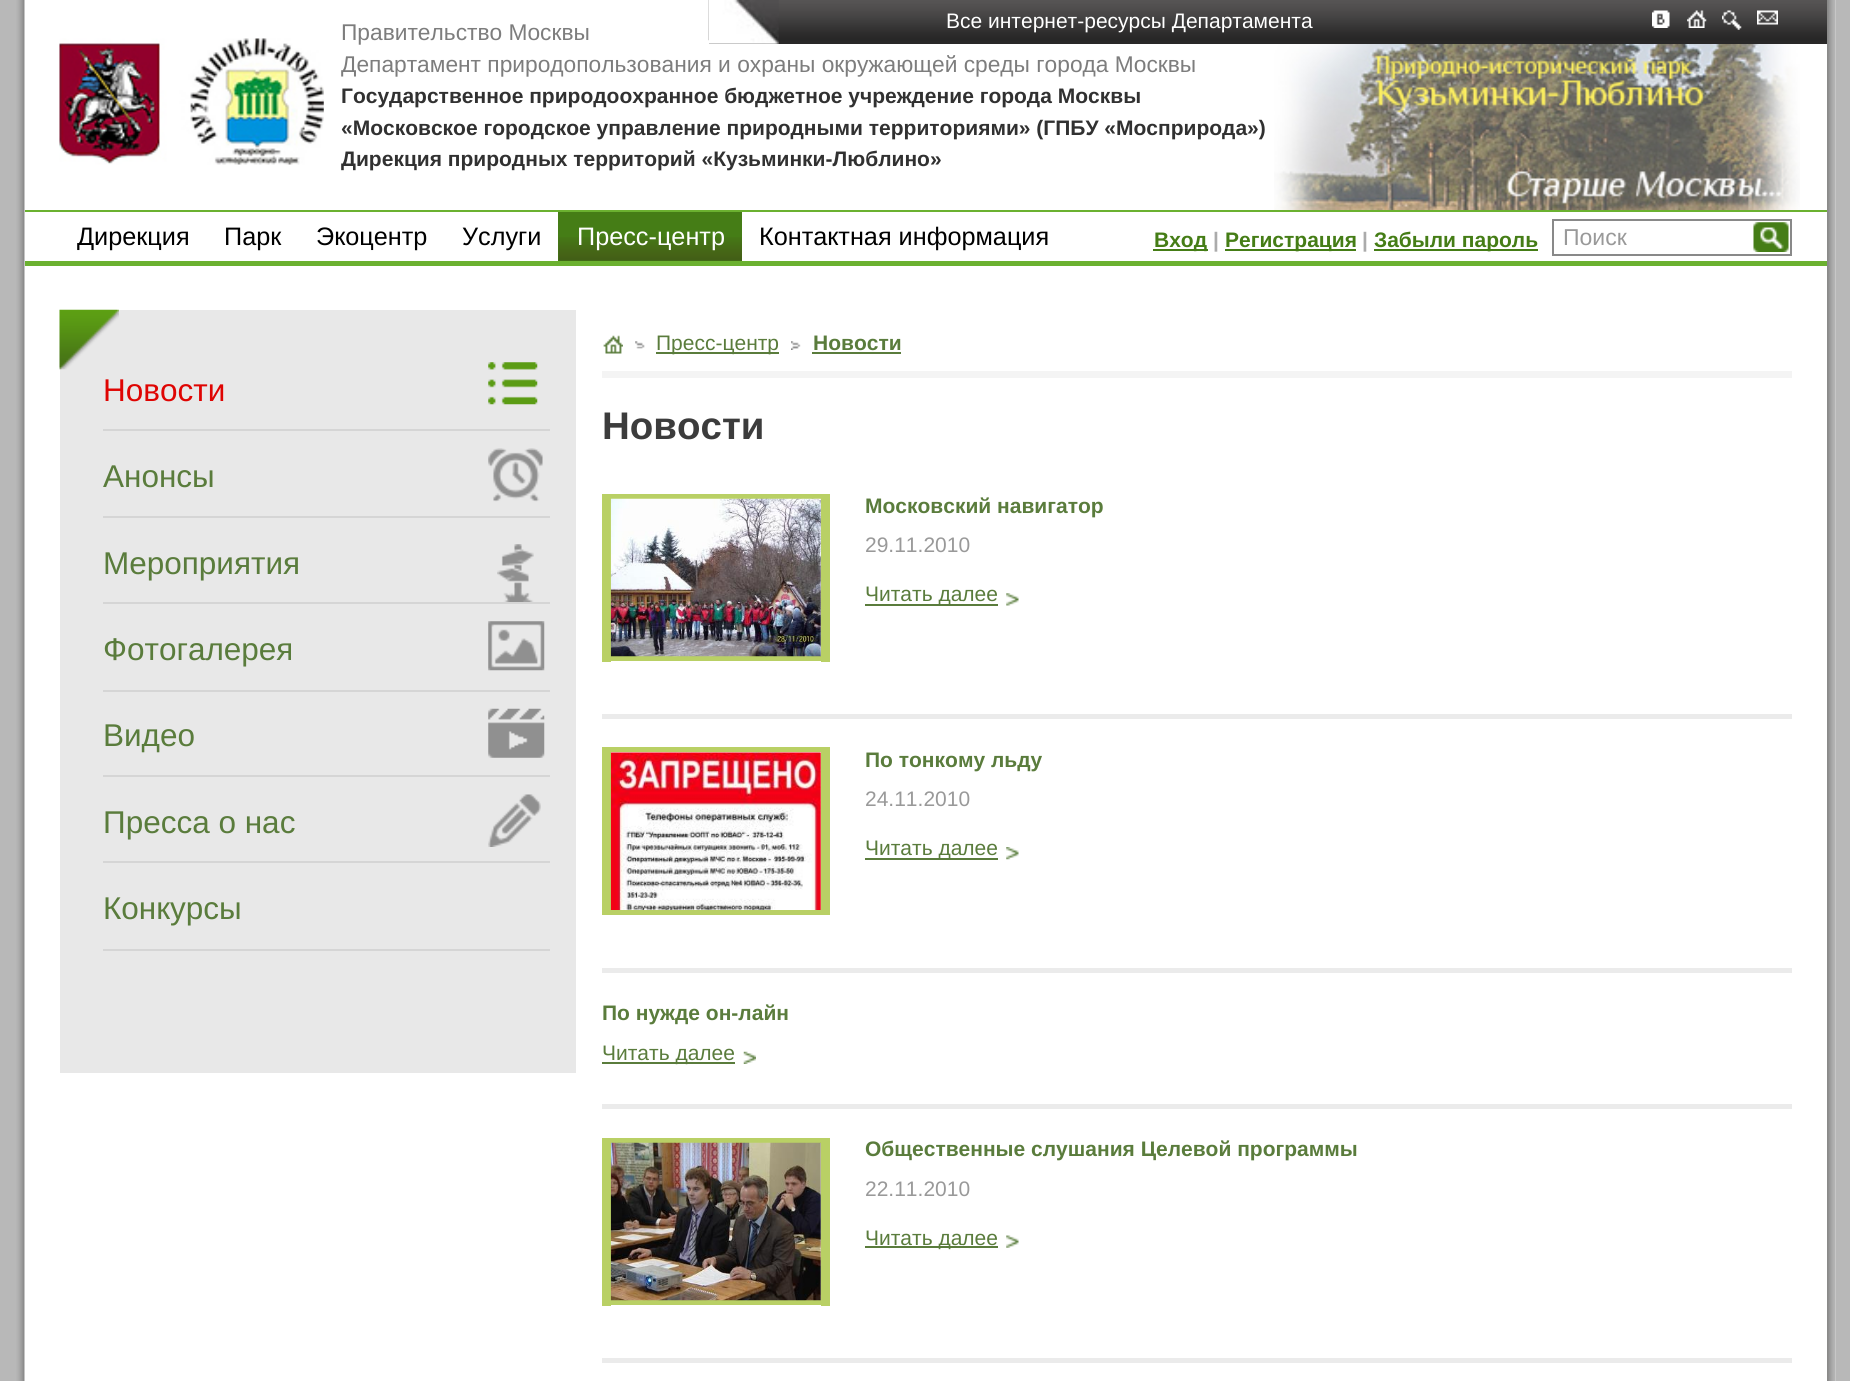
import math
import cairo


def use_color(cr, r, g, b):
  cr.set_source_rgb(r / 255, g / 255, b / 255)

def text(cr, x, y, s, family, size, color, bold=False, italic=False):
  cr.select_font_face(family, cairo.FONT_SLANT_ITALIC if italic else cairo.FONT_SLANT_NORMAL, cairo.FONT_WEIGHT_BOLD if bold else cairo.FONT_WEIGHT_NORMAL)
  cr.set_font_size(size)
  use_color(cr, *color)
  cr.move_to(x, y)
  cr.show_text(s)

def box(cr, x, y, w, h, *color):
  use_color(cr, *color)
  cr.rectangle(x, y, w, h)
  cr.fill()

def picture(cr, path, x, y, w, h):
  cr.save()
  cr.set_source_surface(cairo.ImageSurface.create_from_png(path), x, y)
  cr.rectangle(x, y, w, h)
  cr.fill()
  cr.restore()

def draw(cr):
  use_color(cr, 184, 184, 184)
  cr.paint()
  box(cr, 24, 0, 1812, 1381, 255, 255, 255)
  picture(cr, "img_01.png", 16, 0, 9, 1381)
  picture(cr, "img_02.png", 1827, 0, 9, 1381)
  box(cr, 709, 40, 1118, 4, 41, 40, 40)
  picture(cr, "img_03.png", 708, 0, 1119, 41)
  picture(cr, "img_04.png", 708, 0, 71, 44)
  picture(cr, "img_05.png", 1652, 10, 18, 18)
  picture(cr, "img_06.png", 1687, 10, 20, 18)
  picture(cr, "img_07.png", 1722, 10, 20, 20)
  picture(cr, "img_08.png", 1757, 10, 21, 15)
  picture(cr, "img_09.png", 59, 38, 265, 127)
  picture(cr, "img_10.png", 1274, 44, 526, 166)
  box(cr, 25, 210, 1802, 2, 107, 177, 48)
  box(cr, 25, 261, 1802, 5, 107, 177, 48)
  box(cr, 558, 212, 184, 49, 69, 125, 22)
  picture(cr, "img_11.png", 558, 237, 184, 24)
  box(cr, 1153, 249, 55, 2, 69, 125, 22)
  box(cr, 1225, 249, 131, 2, 69, 125, 22)
  box(cr, 1374, 249, 164, 2, 69, 125, 22)
  cr.rectangle(1553, 220, 238, 35)
  use_color(cr, 137, 137, 137)
  cr.stroke()
  picture(cr, "img_12.png", 1753, 222, 36, 30)
  box(cr, 60, 310, 516, 763, 232, 232, 232)
  picture(cr, "img_13.png", 59, 309, 60, 61)
  picture(cr, "img_14.png", 488, 362, 50, 43)
  box(cr, 103, 429, 447, 2, 213, 213, 213)
  picture(cr, "img_15.png", 488, 448, 55, 54)
  box(cr, 103, 516, 447, 2, 213, 213, 213)
  picture(cr, "img_16.png", 497, 544, 37, 58)
  box(cr, 103, 602, 447, 2, 213, 213, 213)
  picture(cr, "img_17.png", 488, 621, 57, 50)
  box(cr, 103, 690, 447, 2, 213, 213, 213)
  picture(cr, "img_18.png", 488, 708, 57, 50)
  box(cr, 103, 775, 447, 2, 213, 213, 213)
  picture(cr, "img_19.png", 488, 794, 53, 53)
  box(cr, 103, 861, 447, 2, 213, 213, 213)
  box(cr, 103, 949, 447, 2, 213, 213, 213)
  box(cr, 602, 371, 1190, 7, 244, 244, 244)
  picture(cr, "img_20.png", 635, 341, 10, 8)
  picture(cr, "img_21.png", 603, 335, 20, 19)
  picture(cr, "img_22.png", 791, 341, 10, 9)
  box(cr, 656, 352, 123, 2, 90, 124, 60)
  box(cr, 812, 352, 89, 2, 90, 124, 60)
  box(cr, 602, 714, 1190, 5, 235, 235, 235)
  box(cr, 611, 494, 210, 5, 185, 208, 101)
  box(cr, 821, 494, 9, 168, 185, 208, 101)
  box(cr, 611, 656, 210, 5, 185, 208, 101)
  box(cr, 602, 494, 9, 168, 185, 208, 101)
  picture(cr, "img_23.png", 610, 498, 211, 159)
  box(cr, 865, 604, 133, 2, 90, 124, 60)
  picture(cr, "img_24.png", 1006, 593, 13, 13)
  box(cr, 602, 968, 1190, 5, 235, 235, 235)
  box(cr, 611, 747, 210, 5, 185, 208, 101)
  box(cr, 821, 747, 9, 163, 185, 208, 101)
  box(cr, 611, 910, 219, 5, 185, 208, 101)
  box(cr, 602, 747, 9, 168, 185, 208, 101)
  picture(cr, "img_25.png", 610, 752, 211, 158)
  box(cr, 865, 858, 133, 2, 90, 124, 60)
  picture(cr, "img_26.png", 1006, 847, 13, 13)
  box(cr, 602, 1104, 1190, 5, 235, 235, 235)
  box(cr, 602, 1062, 133, 2, 90, 124, 60)
  picture(cr, "img_27.png", 743, 1051, 13, 13)
  box(cr, 602, 1358, 1190, 5, 235, 235, 235)
  box(cr, 611, 1138, 210, 5, 185, 208, 101)
  box(cr, 821, 1138, 9, 168, 185, 208, 101)
  box(cr, 611, 1300, 210, 5, 185, 208, 101)
  box(cr, 602, 1138, 9, 168, 185, 208, 101)
  picture(cr, "img_28.png", 610, 1142, 211, 159)
  box(cr, 865, 1246, 133, 2, 90, 124, 60)
  picture(cr, "img_29.png", 1006, 1235, 13, 13)
  text(cr, 946, 28, "Все интернет-ресурсы Департамента", "Liberation Sans", 21, (255, 255, 255))
  text(cr, 341, 40, "Правительство Москвы", "Liberation Sans", 22.75, (125, 125, 125))
  text(cr, 341, 72, "Департамент природопользования и охраны окружающей среды города Москвы", "Liberation Sans", 22.75, (125, 125, 125))
  text(cr, 341, 103, "Государственное природоохранное бюджетное учреждение города Москвы", "Liberation Sans", 21, (49, 49, 49), bold=True)
  text(cr, 341, 135, "«Московское городское управление природными территориями» (ГПБУ «Мосприрода»)", "Liberation Sans", 21, (49, 49, 49), bold=True)
  text(cr, 341, 166, "Дирекция природных территорий «Кузьминки-Люблино»", "Liberation Sans", 21, (49, 49, 49), bold=True)
  text(cr, 77, 245, "Дирекция", "Liberation Sans", 25.25, (0, 0, 0))
  text(cr, 224, 245, "Парк", "Liberation Sans", 25.25, (0, 0, 0))
  text(cr, 316, 245, "Экоцентр", "Liberation Sans", 25.25, (0, 0, 0))
  text(cr, 462, 245, "Услуги", "Liberation Sans", 25.25, (0, 0, 0))
  text(cr, 577, 245, "Пресс-центр", "Liberation Sans", 25.25, (255, 255, 255))
  text(cr, 759, 245, "Контактная информация", "Liberation Sans", 25.25, (0, 0, 0))
  text(cr, 1154, 247, "Вход", "Liberation Sans", 21, (69, 125, 22), bold=True)
  text(cr, 1213, 247, "|", "Liberation Sans", 21, (171, 171, 171), bold=True)
  text(cr, 1225, 247, "Регистрация", "Liberation Sans", 21, (69, 125, 22), bold=True)
  text(cr, 1362, 247, "|", "Liberation Sans", 21, (171, 171, 171), bold=True)
  text(cr, 1374, 247, "Забыли пароль", "Liberation Sans", 21, (69, 125, 22), bold=True)
  text(cr, 1563, 245, "Поиск", "Liberation Sans", 23, (153, 153, 153))
  text(cr, 103, 401, "Новости", "Liberation Sans", 31.5, (223, 4, 2))
  text(cr, 103, 487, "Анонсы", "Liberation Sans", 31.5, (90, 124, 60))
  text(cr, 103, 574, "Мероприятия", "Liberation Sans", 31.5, (90, 124, 60))
  text(cr, 103, 660, "Фотогалерея", "Liberation Sans", 31.5, (90, 124, 60))
  text(cr, 103, 746, "Видео", "Liberation Sans", 31.5, (90, 124, 60))
  text(cr, 103, 833, "Пресса о нас", "Liberation Sans", 31.5, (90, 124, 60))
  text(cr, 103, 919, "Конкурсы", "Liberation Sans", 31.5, (90, 124, 60))
  text(cr, 656, 350, "Пресс-центр", "Liberation Sans", 21, (90, 124, 60))
  text(cr, 813, 350, "Новости", "Liberation Sans", 21, (90, 124, 60), bold=True)
  text(cr, 602, 439, "Новости", "Liberation Sans", 38.5, (60, 60, 60), bold=True)
  text(cr, 865, 513, "Московский навигатор", "Liberation Sans", 21, (90, 124, 60), bold=True)
  text(cr, 865, 552, "29.11.2010", "Liberation Sans", 21, (153, 153, 153))
  text(cr, 865, 601, "Читать далее", "Liberation Sans", 21, (90, 124, 60))
  text(cr, 865, 767, "По тонкому льду", "Liberation Sans", 21, (90, 124, 60), bold=True)
  text(cr, 865, 806, "24.11.2010", "Liberation Sans", 21, (153, 153, 153))
  text(cr, 865, 855, "Читать далее", "Liberation Sans", 21, (90, 124, 60))
  text(cr, 602, 1020, "По нужде он-лайн", "Liberation Sans", 21, (90, 124, 60), bold=True)
  text(cr, 602, 1060, "Читать далее", "Liberation Sans", 21, (90, 124, 60))
  text(cr, 865, 1156, "Общественные слушания Целевой программы", "Liberation Sans", 21, (90, 124, 60), bold=True)
  text(cr, 865, 1196, "22.11.2010", "Liberation Sans", 21, (153, 153, 153))
  text(cr, 865, 1245, "Читать далее", "Liberation Sans", 21, (90, 124, 60))


surface = cairo.ImageSurface(cairo.FORMAT_RGB24, 1850, 1381)
cr = cairo.Context(surface)
options = cairo.FontOptions()
options.set_hint_metrics(cairo.HINT_METRICS_OFF)
options.set_hint_style(cairo.HINT_STYLE_NONE)
cr.set_font_options(options)
cr.set_miter_limit(4)
draw(cr)
surface.write_to_png("out.png")
